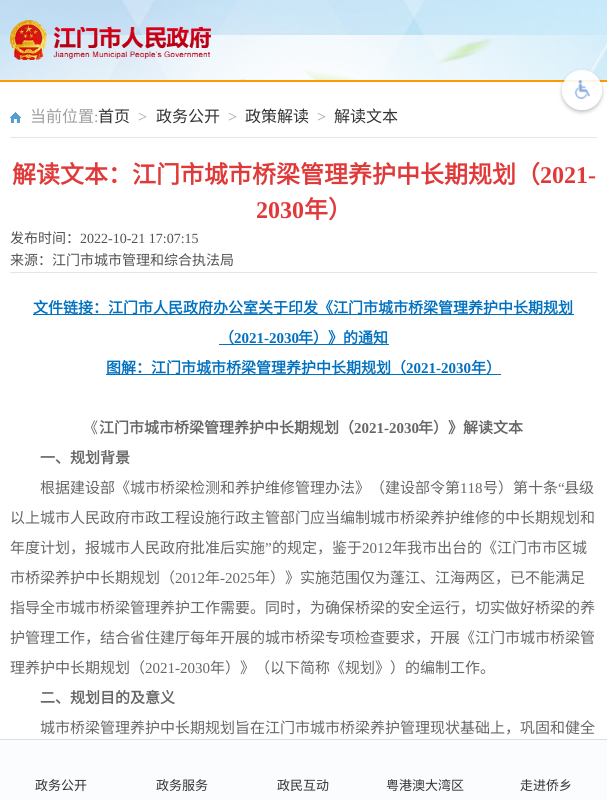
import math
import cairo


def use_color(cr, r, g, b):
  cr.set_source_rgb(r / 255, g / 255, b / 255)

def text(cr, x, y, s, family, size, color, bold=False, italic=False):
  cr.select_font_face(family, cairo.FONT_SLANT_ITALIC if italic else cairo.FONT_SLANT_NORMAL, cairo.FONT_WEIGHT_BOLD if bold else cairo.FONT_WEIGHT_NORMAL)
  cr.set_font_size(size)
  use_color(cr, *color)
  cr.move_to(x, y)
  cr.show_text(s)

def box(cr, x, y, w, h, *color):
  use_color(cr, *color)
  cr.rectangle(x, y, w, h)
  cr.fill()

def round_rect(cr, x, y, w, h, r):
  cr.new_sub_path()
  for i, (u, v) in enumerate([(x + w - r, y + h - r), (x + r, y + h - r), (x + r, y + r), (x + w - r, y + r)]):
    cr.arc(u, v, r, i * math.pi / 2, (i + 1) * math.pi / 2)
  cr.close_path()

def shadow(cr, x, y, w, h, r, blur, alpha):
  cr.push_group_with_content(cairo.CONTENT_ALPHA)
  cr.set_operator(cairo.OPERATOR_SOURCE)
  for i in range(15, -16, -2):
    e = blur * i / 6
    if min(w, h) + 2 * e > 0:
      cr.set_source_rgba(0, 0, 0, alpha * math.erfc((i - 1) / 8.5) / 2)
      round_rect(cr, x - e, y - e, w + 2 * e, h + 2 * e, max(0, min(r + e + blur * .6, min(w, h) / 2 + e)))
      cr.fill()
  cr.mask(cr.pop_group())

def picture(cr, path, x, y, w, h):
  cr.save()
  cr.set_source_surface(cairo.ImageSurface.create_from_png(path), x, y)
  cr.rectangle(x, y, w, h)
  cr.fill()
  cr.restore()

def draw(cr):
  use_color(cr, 245, 249, 250)
  cr.paint()
  picture(cr, "img_01.png", 0, 0, 607, 80)
  box(cr, 0, 80, 607, 2, 253, 154, 0)
  picture(cr, "img_02.png", 10, 20, 201, 40)
  box(cr, 0, 82, 607, 657, 255, 255, 255)
  box(cr, 10, 137, 587, 1, 229, 229, 229)
  picture(cr, "img_03.png", 10, 112, 11, 11)
  box(cr, 10, 272, 587, 1, 229, 229, 229)
  box(cr, 33, 314, 541, 1, 0, 112, 192)
  box(cr, 219, 344, 170, 1, 0, 112, 192)
  box(cr, 106, 374, 395, 1, 0, 112, 192)
  cr.save()
  cr.set_fill_rule(cairo.FILL_RULE_EVEN_ODD)
  cr.new_path()
  cr.move_to(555, 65)
  cr.line_to(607, 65)
  cr.line_to(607, 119)
  cr.line_to(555, 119)
  cr.close_path()
  cr.move_to(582, 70)
  cr.curve_to(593, 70, 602, 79, 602, 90)
  cr.curve_to(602, 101, 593, 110, 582, 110)
  cr.curve_to(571, 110, 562, 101, 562, 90)
  cr.curve_to(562, 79, 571, 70, 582, 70)
  cr.close_path()
  cr.clip()
  use_color(cr, 0, 0, 0)
  shadow(cr, 562, 72, 40, 40, 20, 2, 0.25)
  cr.restore()
  cr.set_source_rgba(1, 1, 1, 0.9)
  cr.arc(582, 90, 20, 0, 2 * math.pi)
  cr.fill()
  picture(cr, "img_04.png", 574, 80, 16, 19)
  box(cr, 0, 740, 607, 60, 250, 252, 254)
  box(cr, 0, 739, 607, 1, 221, 221, 221)
  text(cr, 30, 122, "当前位置", "Noto Sans CJK SC", 16, (158, 158, 158))
  text(cr, 94, 122, ":", "Liberation Serif", 16, (158, 158, 158))
  text(cr, 98, 122, "首页", "Noto Sans CJK SC", 16, (51, 51, 51))
  text(cr, 138, 122, ">", "Liberation Serif", 16, (158, 158, 158))
  text(cr, 156, 122, "政务公开", "Noto Sans CJK SC", 16, (51, 51, 51))
  text(cr, 228, 122, ">", "Liberation Serif", 16, (158, 158, 158))
  text(cr, 245, 122, "政策解读", "Noto Sans CJK SC", 16, (51, 51, 51))
  text(cr, 317, 122, ">", "Liberation Serif", 16, (158, 158, 158))
  text(cr, 334, 122, "解读文本", "Noto Sans CJK SC", 16, (51, 51, 51))
  text(cr, 12, 183, "解读文本：江门市城市桥梁管理养护中长期规划（", "Noto Sans CJK SC", 24, (223, 58, 57), bold=True)
  text(cr, 540, 183, "2021-", "Liberation Serif", 24, (223, 58, 57), bold=True)
  text(cr, 256, 218, "2030", "Liberation Serif", 24, (223, 58, 57), bold=True)
  text(cr, 304, 218, "年）", "Noto Sans CJK SC", 24, (223, 58, 57), bold=True)
  text(cr, 10, 243, "发布时间：", "Noto Sans CJK SC", 14, (82, 82, 82))
  text(cr, 80, 243, "2022-10-21 17:07:15", "Liberation Serif", 14, (82, 82, 82))
  text(cr, 10, 265, "来源：江门市城市管理和综合执法局", "Noto Sans CJK SC", 14, (82, 82, 82))
  text(cr, 33, 313, "文件链接：江门市人民政府办公室关于印发《江门市城市桥梁管理养护中长期规划", "Noto Sans CJK SC", 15, (0, 112, 192), bold=True)
  text(cr, 219, 343, "（", "Noto Sans CJK SC", 15, (0, 112, 192), bold=True)
  text(cr, 234, 343, "2021-2030", "Liberation Serif", 15, (0, 112, 192), bold=True)
  text(cr, 298, 343, "年）》的通知", "Noto Sans CJK SC", 15, (0, 112, 192), bold=True)
  text(cr, 106, 373, "图解：江门市城市桥梁管理养护中长期规划（", "Noto Sans CJK SC", 15, (0, 112, 192), bold=True)
  text(cr, 406, 373, "2021-2030", "Liberation Serif", 15, (0, 112, 192), bold=True)
  text(cr, 471, 373, "年）", "Noto Sans CJK SC", 15, (0, 112, 192), bold=True)
  text(cr, 83, 433, "《", "Noto Sans CJK SC", 15, (102, 102, 102))
  text(cr, 99, 433, "江门市城市桥梁管理养护中长期规划（", "Noto Sans CJK SC", 15, (102, 102, 102), bold=True)
  text(cr, 354, 433, "2021-2030", "Liberation Serif", 15, (102, 102, 102), bold=True)
  text(cr, 418, 433, "年）》解读文本", "Noto Sans CJK SC", 15, (102, 102, 102), bold=True)
  text(cr, 40, 463, "一、规划背景", "Noto Sans CJK SC", 15, (102, 102, 102), bold=True)
  text(cr, 40, 493, "根据建设部《城市桥梁检测和养护维修管理办法》（建设部令第", "Noto Sans CJK SC", 15, (102, 102, 102))
  text(cr, 460, 493, "118", "Liberation Serif", 15, (102, 102, 102))
  text(cr, 483, 493, "号）第十条", "Noto Sans CJK SC", 15, (102, 102, 102))
  text(cr, 558, 493, "“", "Liberation Serif", 15, (102, 102, 102))
  text(cr, 564, 493, "县级", "Noto Sans CJK SC", 15, (102, 102, 102))
  text(cr, 10, 523, "以上城市人民政府市政工程设施行政主管部门应当编制城市桥梁养护维修的中长期规划和", "Noto Sans CJK SC", 15, (102, 102, 102))
  text(cr, 10, 553, "年度计划，报城市人民政府批准后实施", "Noto Sans CJK SC", 15, (102, 102, 102))
  text(cr, 265, 553, "”", "Liberation Serif", 15, (102, 102, 102))
  text(cr, 272, 553, "的规定，鉴于", "Noto Sans CJK SC", 15, (102, 102, 102))
  text(cr, 362, 553, "2012", "Liberation Serif", 15, (102, 102, 102))
  text(cr, 392, 553, "年我市出台的《江门市市区城", "Noto Sans CJK SC", 15, (102, 102, 102))
  text(cr, 10, 583, "市桥梁养护中长期规划（", "Noto Sans CJK SC", 15, (102, 102, 102))
  text(cr, 175, 583, "2012", "Liberation Serif", 15, (102, 102, 102))
  text(cr, 205, 583, "年", "Noto Sans CJK SC", 15, (102, 102, 102))
  text(cr, 220, 583, "-2025", "Liberation Serif", 15, (102, 102, 102))
  text(cr, 255, 583, "年）》实施范围仅为蓬江、江海两区，已不能满足", "Noto Sans CJK SC", 15, (102, 102, 102))
  text(cr, 10, 613, "指导全市城市桥梁管理养护工作需要。同时，为确保桥梁的安全运行，切实做好桥梁的养", "Noto Sans CJK SC", 15, (102, 102, 102))
  text(cr, 10, 643, "护管理工作，结合省住建厅每年开展的城市桥梁专项检查要求，开展《江门市城市桥梁管", "Noto Sans CJK SC", 15, (102, 102, 102))
  text(cr, 10, 673, "理养护中长期规划（", "Noto Sans CJK SC", 15, (102, 102, 102))
  text(cr, 145, 673, "2021-2030", "Liberation Serif", 15, (102, 102, 102))
  text(cr, 210, 673, "年）》（以下简称《规划》）的编制工作。", "Noto Sans CJK SC", 15, (102, 102, 102))
  text(cr, 40, 703, "二、规划目的及意义", "Noto Sans CJK SC", 15, (102, 102, 102), bold=True)
  text(cr, 40, 733, "城市桥梁管理养护中长期规划旨在江门市城市桥梁养护管理现状基础上，巩固和健全", "Noto Sans CJK SC", 15, (102, 102, 102))
  text(cr, 35, 790, "政务公开", "Noto Sans CJK SC", 13, (51, 51, 51))
  text(cr, 156, 790, "政务服务", "Noto Sans CJK SC", 13, (51, 51, 51))
  text(cr, 277, 790, "政民互动", "Noto Sans CJK SC", 13, (51, 51, 51))
  text(cr, 386, 790, "粤港澳大湾区", "Noto Sans CJK SC", 13, (51, 51, 51))
  text(cr, 520, 790, "走进侨乡", "Noto Sans CJK SC", 13, (51, 51, 51))


surface = cairo.ImageSurface(cairo.FORMAT_RGB24, 607, 800)
cr = cairo.Context(surface)
options = cairo.FontOptions()
options.set_hint_metrics(cairo.HINT_METRICS_OFF)
options.set_hint_style(cairo.HINT_STYLE_NONE)
cr.set_font_options(options)
cr.set_miter_limit(4)
draw(cr)
surface.write_to_png("out.png")
